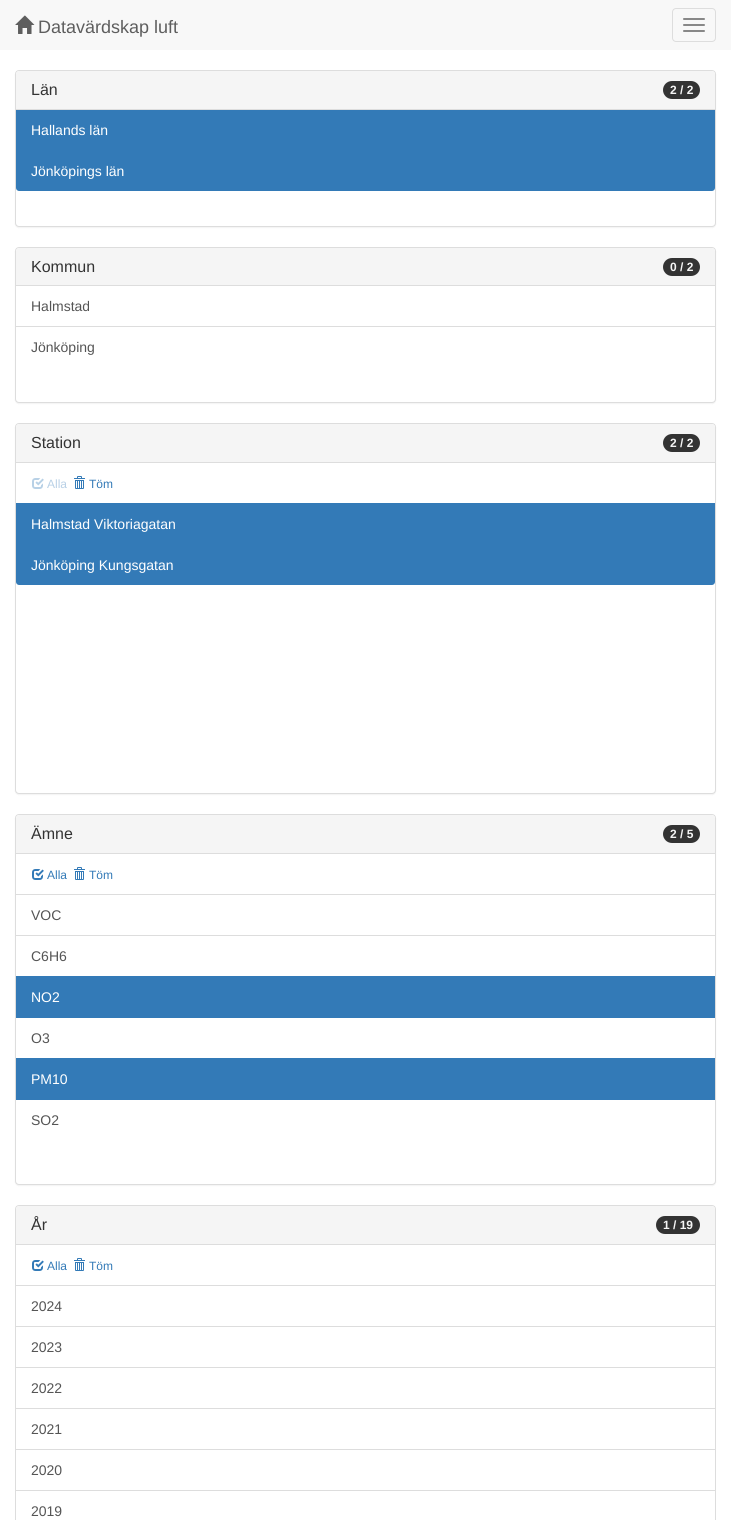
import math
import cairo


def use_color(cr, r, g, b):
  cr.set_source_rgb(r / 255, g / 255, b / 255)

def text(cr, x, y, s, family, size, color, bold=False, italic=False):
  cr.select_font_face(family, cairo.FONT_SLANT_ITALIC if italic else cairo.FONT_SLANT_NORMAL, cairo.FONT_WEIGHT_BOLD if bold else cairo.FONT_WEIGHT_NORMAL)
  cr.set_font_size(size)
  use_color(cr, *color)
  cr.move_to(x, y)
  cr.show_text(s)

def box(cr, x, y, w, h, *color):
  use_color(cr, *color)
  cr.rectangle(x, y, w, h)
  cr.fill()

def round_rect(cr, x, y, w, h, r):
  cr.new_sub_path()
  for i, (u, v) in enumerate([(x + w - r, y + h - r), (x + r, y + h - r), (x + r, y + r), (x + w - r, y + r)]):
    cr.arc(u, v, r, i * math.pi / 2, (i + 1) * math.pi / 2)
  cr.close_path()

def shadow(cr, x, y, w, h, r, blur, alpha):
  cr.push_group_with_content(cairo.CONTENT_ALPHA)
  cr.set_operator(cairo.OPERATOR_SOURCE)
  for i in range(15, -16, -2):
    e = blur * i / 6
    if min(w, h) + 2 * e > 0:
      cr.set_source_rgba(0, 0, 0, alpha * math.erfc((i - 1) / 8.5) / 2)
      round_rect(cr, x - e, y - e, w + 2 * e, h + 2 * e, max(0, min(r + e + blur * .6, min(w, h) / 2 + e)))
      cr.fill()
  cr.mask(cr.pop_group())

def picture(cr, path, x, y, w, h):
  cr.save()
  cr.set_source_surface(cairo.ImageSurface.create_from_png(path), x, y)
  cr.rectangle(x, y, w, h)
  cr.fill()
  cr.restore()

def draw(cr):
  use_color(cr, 255, 255, 255)
  cr.paint()
  box(cr, 0, 0, 731, 50, 248, 248, 248)
  picture(cr, "img_01.png", 15, 15, 20, 19)
  round_rect(cr, 672.5, 8.5, 43, 33, 3.5)
  use_color(cr, 221, 221, 221)
  cr.set_line_width(1)
  cr.stroke()
  use_color(cr, 136, 136, 136)
  round_rect(cr, 683, 18, 22, 2, 1)
  cr.fill()
  round_rect(cr, 683, 24, 22, 2, 1)
  cr.fill()
  round_rect(cr, 683, 30, 22, 2, 1)
  cr.fill()
  use_color(cr, 0, 0, 0)
  shadow(cr, 15, 71, 701, 157, 4, 0.5, 0.05)
  use_color(cr, 255, 255, 255)
  round_rect(cr, 15.5, 70.5, 700, 156, 3.5)
  cr.fill_preserve()
  use_color(cr, 221, 221, 221)
  cr.stroke()
  use_color(cr, 245, 245, 245)
  cr.new_path()
  cr.move_to(19, 71)
  cr.line_to(712, 71)
  cr.curve_to(713.5, 71, 715, 72.5, 715, 74)
  cr.line_to(715, 110)
  cr.line_to(16, 110)
  cr.line_to(16, 74)
  cr.curve_to(16, 72.5, 17.5, 71, 19, 71)
  cr.close_path()
  cr.fill()
  box(cr, 16, 109, 699, 1, 221, 221, 221)
  use_color(cr, 51, 51, 51)
  round_rect(cr, 663, 81, 37, 18, 9)
  cr.fill()
  box(cr, 16, 110, 699, 40, 51, 122, 183)
  cr.new_path()
  cr.move_to(16, 150)
  cr.line_to(715, 150)
  cr.line_to(715, 188)
  cr.curve_to(715, 189.5, 713.5, 191, 712, 191)
  cr.line_to(19, 191)
  cr.curve_to(17.5, 191, 16, 189.5, 16, 188)
  cr.close_path()
  cr.fill()
  use_color(cr, 0, 0, 0)
  shadow(cr, 15, 248, 701, 156, 4, 0.5, 0.05)
  use_color(cr, 255, 255, 255)
  round_rect(cr, 15.5, 247.5, 700, 155, 3.5)
  cr.fill_preserve()
  use_color(cr, 221, 221, 221)
  cr.stroke()
  use_color(cr, 245, 245, 245)
  cr.new_path()
  cr.move_to(19, 248)
  cr.line_to(712, 248)
  cr.curve_to(713.5, 248, 715, 249.5, 715, 251)
  cr.line_to(715, 286)
  cr.line_to(16, 286)
  cr.line_to(16, 251)
  cr.curve_to(16, 249.5, 17.5, 248, 19, 248)
  cr.close_path()
  cr.fill()
  box(cr, 16, 285, 699, 1, 221, 221, 221)
  use_color(cr, 51, 51, 51)
  round_rect(cr, 663, 258, 37, 18, 9)
  cr.fill()
  box(cr, 16, 326, 699, 1, 221, 221, 221)
  use_color(cr, 0, 0, 0)
  shadow(cr, 15, 424, 701, 371, 4, 0.5, 0.05)
  use_color(cr, 255, 255, 255)
  round_rect(cr, 15.5, 423.5, 700, 370, 3.5)
  cr.fill_preserve()
  use_color(cr, 221, 221, 221)
  cr.stroke()
  use_color(cr, 245, 245, 245)
  cr.new_path()
  cr.move_to(19, 424)
  cr.line_to(712, 424)
  cr.curve_to(713.5, 424, 715, 425.5, 715, 427)
  cr.line_to(715, 463)
  cr.line_to(16, 463)
  cr.line_to(16, 427)
  cr.curve_to(16, 425.5, 17.5, 424, 19, 424)
  cr.close_path()
  cr.fill()
  box(cr, 16, 462, 699, 1, 221, 221, 221)
  use_color(cr, 51, 51, 51)
  round_rect(cr, 663, 434, 37, 18, 9)
  cr.fill()
  picture(cr, "img_02.png", 32, 478, 12, 11)
  picture(cr, "img_03.png", 74, 476, 11, 13)
  box(cr, 16, 503, 699, 41, 51, 122, 183)
  cr.new_path()
  cr.move_to(16, 544)
  cr.line_to(715, 544)
  cr.line_to(715, 582)
  cr.curve_to(715, 583.5, 713.5, 585, 712, 585)
  cr.line_to(19, 585)
  cr.curve_to(17.5, 585, 16, 583.5, 16, 582)
  cr.close_path()
  cr.fill()
  use_color(cr, 0, 0, 0)
  shadow(cr, 15, 815, 701, 371, 4, 0.5, 0.05)
  use_color(cr, 255, 255, 255)
  round_rect(cr, 15.5, 814.5, 700, 370, 3.5)
  cr.fill_preserve()
  use_color(cr, 221, 221, 221)
  cr.stroke()
  use_color(cr, 245, 245, 245)
  cr.new_path()
  cr.move_to(19, 815)
  cr.line_to(712, 815)
  cr.curve_to(713.5, 815, 715, 816.5, 715, 818)
  cr.line_to(715, 854)
  cr.line_to(16, 854)
  cr.line_to(16, 818)
  cr.curve_to(16, 816.5, 17.5, 815, 19, 815)
  cr.close_path()
  cr.fill()
  box(cr, 16, 853, 699, 1, 221, 221, 221)
  use_color(cr, 51, 51, 51)
  round_rect(cr, 663, 825, 37, 18, 9)
  cr.fill()
  picture(cr, "img_04.png", 32, 869, 12, 11)
  picture(cr, "img_03.png", 74, 867, 11, 13)
  box(cr, 16, 894, 699, 1, 221, 221, 221)
  box(cr, 16, 935, 699, 1, 221, 221, 221)
  box(cr, 16, 976, 699, 42, 51, 122, 183)
  box(cr, 16, 1058, 699, 42, 51, 122, 183)
  round_rect(cr, 15.5, 1205.5, 700, 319, 3.5)
  use_color(cr, 221, 221, 221)
  cr.stroke()
  use_color(cr, 245, 245, 245)
  cr.new_path()
  cr.move_to(19, 1206)
  cr.line_to(712, 1206)
  cr.curve_to(713.5, 1206, 715, 1207.5, 715, 1209)
  cr.line_to(715, 1245)
  cr.line_to(16, 1245)
  cr.line_to(16, 1209)
  cr.curve_to(16, 1207.5, 17.5, 1206, 19, 1206)
  cr.close_path()
  cr.fill()
  box(cr, 16, 1244, 699, 1, 221, 221, 221)
  use_color(cr, 51, 51, 51)
  round_rect(cr, 656, 1216, 44, 18, 9)
  cr.fill()
  picture(cr, "img_04.png", 32, 1260, 12, 11)
  picture(cr, "img_03.png", 74, 1258, 11, 13)
  box(cr, 16, 1285, 699, 1, 221, 221, 221)
  box(cr, 16, 1326, 699, 1, 221, 221, 221)
  box(cr, 16, 1367, 699, 1, 221, 221, 221)
  box(cr, 16, 1408, 699, 1, 221, 221, 221)
  box(cr, 16, 1449, 699, 1, 221, 221, 221)
  box(cr, 16, 1490, 699, 1, 221, 221, 221)
  text(cr, 38, 33, "Datavärdskap luft", "Liberation Sans", 18, (94, 94, 94))
  text(cr, 31, 95, "Län", "Liberation Sans", 16, (51, 51, 51))
  text(cr, 670, 94, "2 / 2", "Liberation Sans", 12, (245, 245, 245), bold=True)
  text(cr, 31, 135, "Hallands län", "Liberation Sans", 14, (255, 255, 255))
  text(cr, 31, 176, "Jönköpings län", "Liberation Sans", 14, (255, 255, 255))
  text(cr, 31, 272, "Kommun", "Liberation Sans", 16, (51, 51, 51))
  text(cr, 670, 271, "0 / 2", "Liberation Sans", 12, (245, 245, 245), bold=True)
  text(cr, 31, 311, "Halmstad", "Liberation Sans", 14, (85, 85, 85))
  text(cr, 31, 352, "Jönköping", "Liberation Sans", 14, (85, 85, 85))
  text(cr, 31, 448, "Station", "Liberation Sans", 16, (51, 51, 51))
  text(cr, 670, 447, "2 / 2", "Liberation Sans", 12, (245, 245, 245), bold=True)
  text(cr, 47, 488, "Alla", "Liberation Sans", 12, (184, 208, 230))
  text(cr, 89, 488, "Töm", "Liberation Sans", 12, (51, 122, 183))
  text(cr, 31, 529, "Halmstad Viktoriagatan", "Liberation Sans", 14, (255, 255, 255))
  text(cr, 31, 570, "Jönköping Kungsgatan", "Liberation Sans", 14, (255, 255, 255))
  text(cr, 31, 839, "Ämne", "Liberation Sans", 16, (51, 51, 51))
  text(cr, 670, 838, "2 / 5", "Liberation Sans", 12, (245, 245, 245), bold=True)
  text(cr, 47, 879, "Alla", "Liberation Sans", 12, (51, 122, 183))
  text(cr, 89, 879, "Töm", "Liberation Sans", 12, (51, 122, 183))
  text(cr, 31, 920, "VOC", "Liberation Sans", 14, (85, 85, 85))
  text(cr, 31, 961, "C6H6", "Liberation Sans", 14, (85, 85, 85))
  text(cr, 31, 1002, "NO2", "Liberation Sans", 14, (255, 255, 255))
  text(cr, 31, 1043, "O3", "Liberation Sans", 14, (85, 85, 85))
  text(cr, 31, 1084, "PM10", "Liberation Sans", 14, (255, 255, 255))
  text(cr, 31, 1125, "SO2", "Liberation Sans", 14, (85, 85, 85))
  text(cr, 31, 1230, "År", "Liberation Sans", 16, (51, 51, 51))
  text(cr, 663, 1229, "1 / 19", "Liberation Sans", 12, (245, 245, 245), bold=True)
  text(cr, 47, 1270, "Alla", "Liberation Sans", 12, (51, 122, 183))
  text(cr, 89, 1270, "Töm", "Liberation Sans", 12, (51, 122, 183))
  text(cr, 31, 1311, "2024", "Liberation Sans", 14, (85, 85, 85))
  text(cr, 31, 1352, "2023", "Liberation Sans", 14, (85, 85, 85))
  text(cr, 31, 1393, "2022", "Liberation Sans", 14, (85, 85, 85))
  text(cr, 31, 1434, "2021", "Liberation Sans", 14, (85, 85, 85))
  text(cr, 31, 1475, "2020", "Liberation Sans", 14, (85, 85, 85))
  text(cr, 31, 1516, "2019", "Liberation Sans", 14, (85, 85, 85))


surface = cairo.ImageSurface(cairo.FORMAT_RGB24, 731, 1520)
cr = cairo.Context(surface)
options = cairo.FontOptions()
options.set_hint_metrics(cairo.HINT_METRICS_OFF)
options.set_hint_style(cairo.HINT_STYLE_NONE)
cr.set_font_options(options)
cr.set_miter_limit(4)
draw(cr)
surface.write_to_png("out.png")
